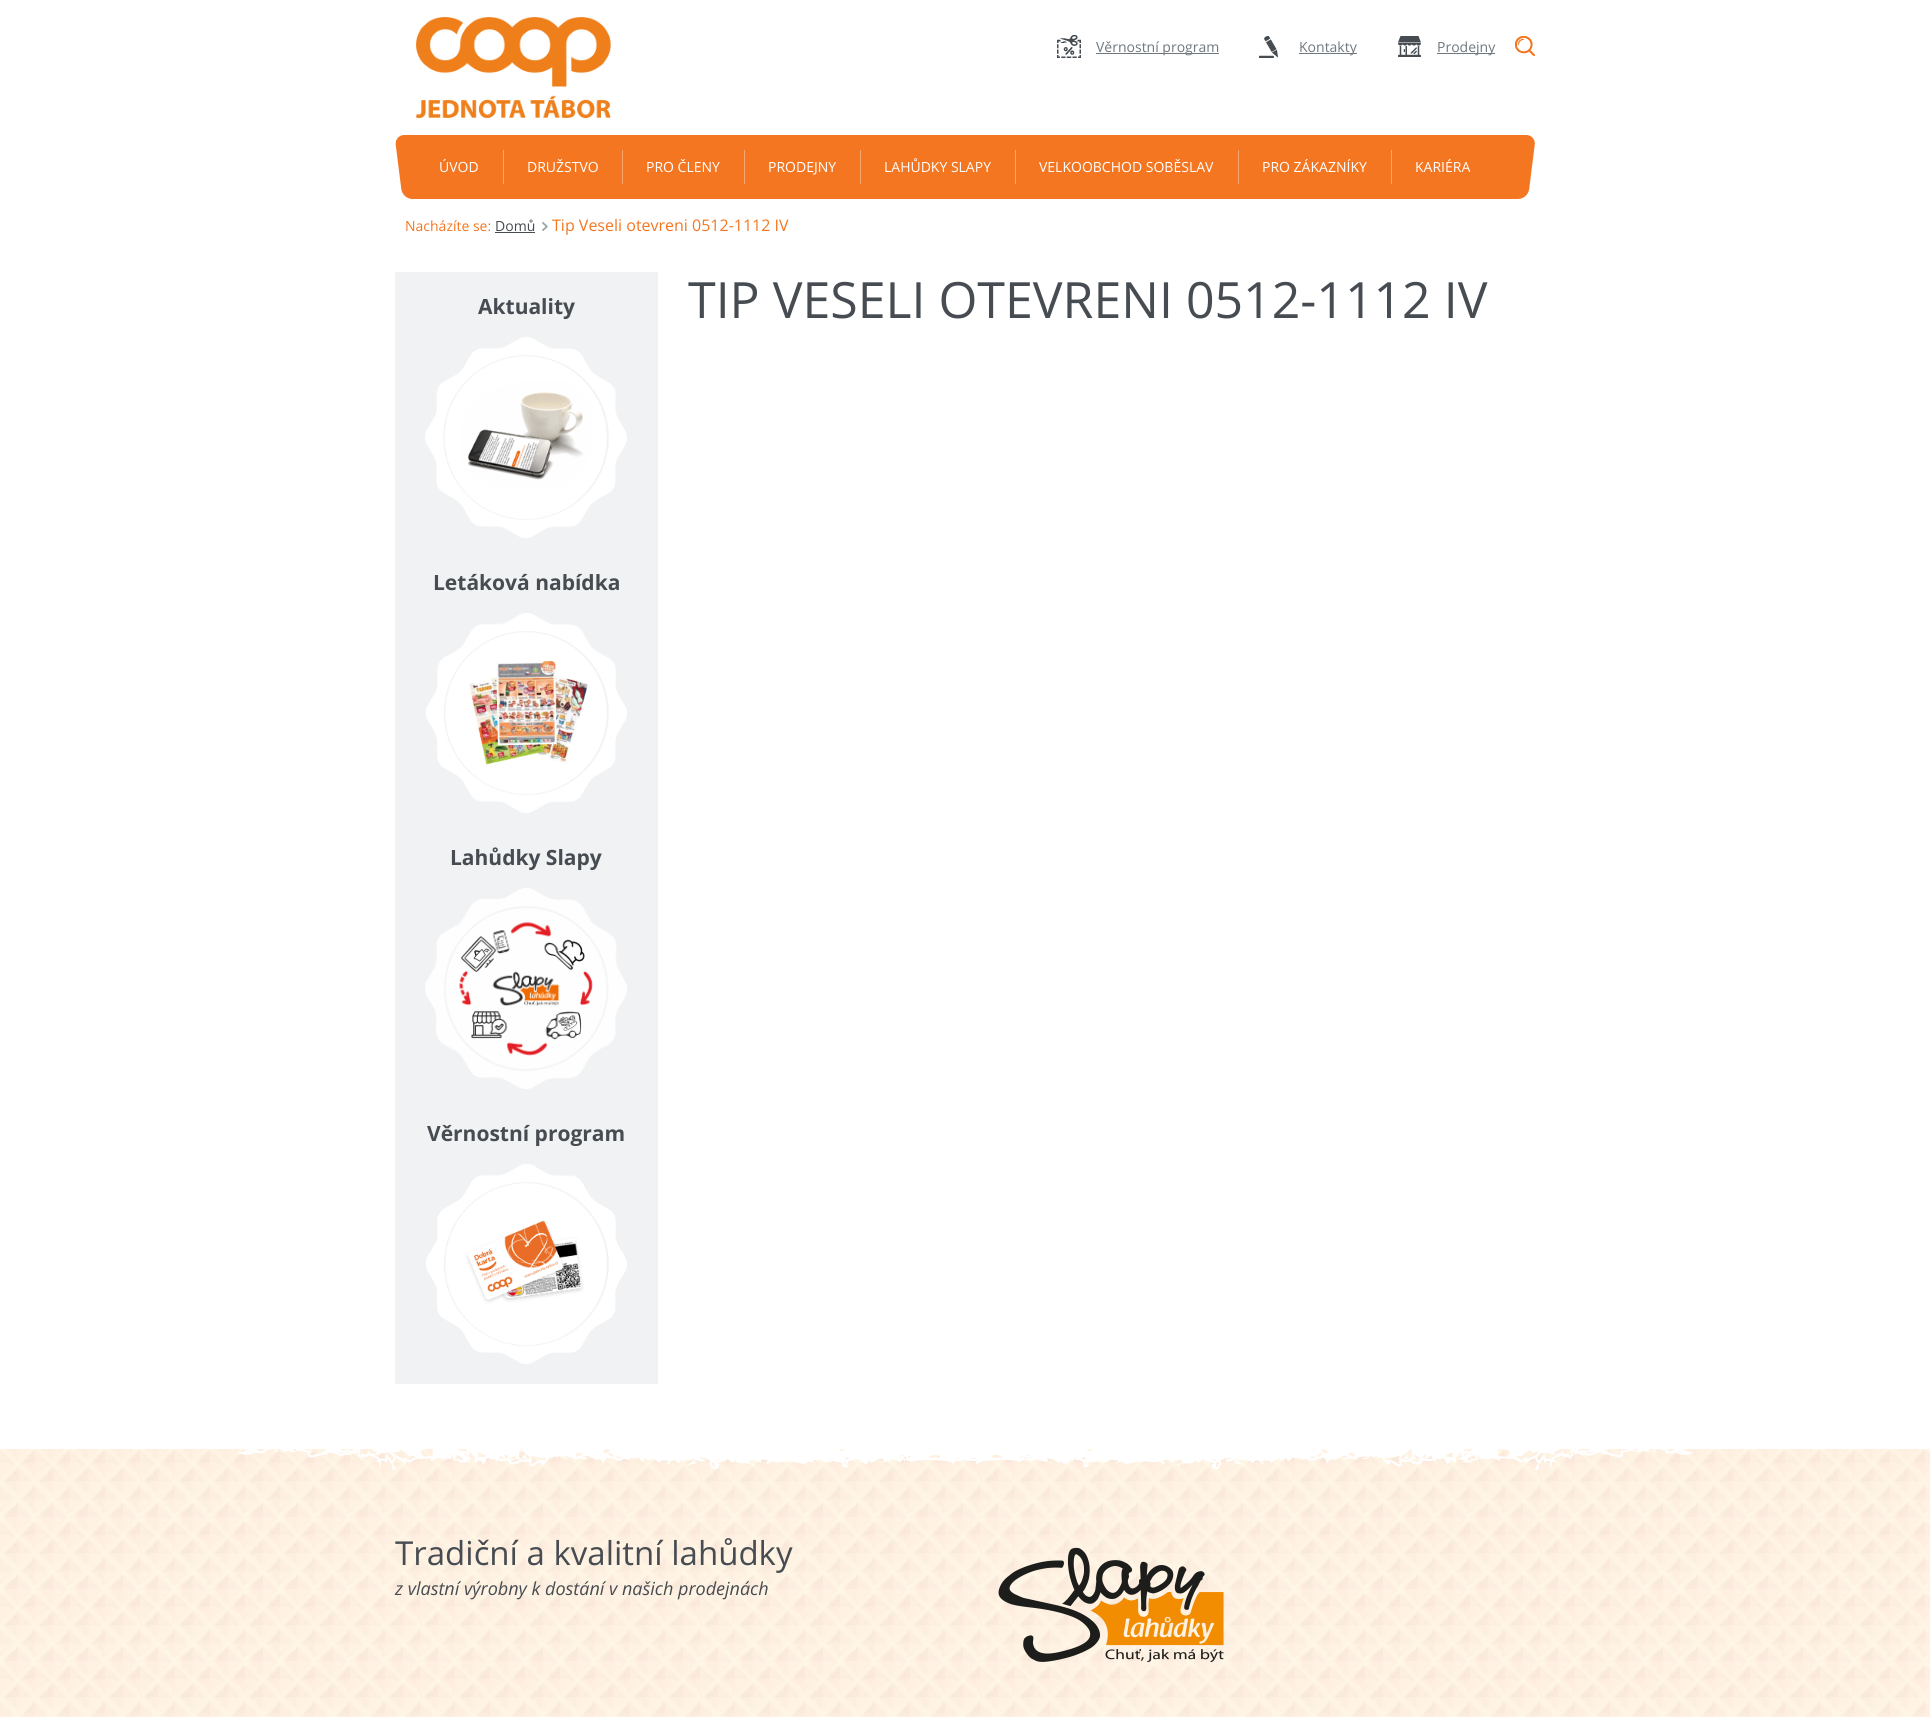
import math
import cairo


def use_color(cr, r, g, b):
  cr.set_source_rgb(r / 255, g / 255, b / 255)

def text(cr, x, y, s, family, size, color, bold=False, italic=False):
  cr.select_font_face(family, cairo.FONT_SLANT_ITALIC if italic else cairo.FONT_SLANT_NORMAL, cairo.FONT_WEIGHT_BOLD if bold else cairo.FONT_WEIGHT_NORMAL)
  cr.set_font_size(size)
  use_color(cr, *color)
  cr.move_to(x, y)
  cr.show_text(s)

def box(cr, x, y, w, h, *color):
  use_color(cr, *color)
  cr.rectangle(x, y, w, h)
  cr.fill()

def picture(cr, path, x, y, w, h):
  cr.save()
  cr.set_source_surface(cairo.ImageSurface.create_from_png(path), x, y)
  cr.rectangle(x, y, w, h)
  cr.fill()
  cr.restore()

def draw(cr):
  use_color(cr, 255, 255, 255)
  cr.paint()
  picture(cr, "img_01.png", 416, 17, 195, 101)
  picture(cr, "img_02.png", 1057, 35, 24, 23)
  box(cr, 1096, 53, 123, 1, 111, 120, 127)
  picture(cr, "img_03.png", 1259, 36, 19, 22)
  box(cr, 1299, 53, 58, 1, 111, 120, 127)
  picture(cr, "img_04.png", 1398, 36, 23, 21)
  box(cr, 1437, 53, 58, 1, 111, 120, 127)
  picture(cr, "img_05.png", 1515, 36, 20, 20)
  box(cr, 415, 135, 1100, 64, 244, 118, 33)
  picture(cr, "img_06.png", 395, 135, 20, 64)
  box(cr, 503, 150, 1, 34, 248, 166, 110)
  box(cr, 622, 150, 1, 34, 248, 166, 110)
  box(cr, 744, 150, 1, 34, 248, 166, 110)
  box(cr, 860, 150, 1, 34, 248, 166, 110)
  box(cr, 1015, 150, 1, 34, 248, 166, 110)
  box(cr, 1238, 150, 1, 34, 248, 166, 110)
  box(cr, 1391, 150, 1, 34, 248, 166, 110)
  picture(cr, "img_07.png", 1515, 135, 20, 64)
  box(cr, 495, 232, 40, 1, 70, 76, 81)
  picture(cr, "img_08.png", 542, 222, 6, 9)
  box(cr, 395, 272, 263, 1112, 241, 242, 243)
  picture(cr, "img_09.png", 425, 337, 202, 201)
  picture(cr, "img_10.png", 426, 613, 201, 200)
  picture(cr, "img_11.png", 425, 888, 202, 201)
  picture(cr, "img_12.png", 426, 1164, 201, 200)
  picture(cr, "img_13.png", 0, 1449, 1930, 268)
  picture(cr, "img_14.png", 239, 1449, 1453, 21)
  picture(cr, "img_15.png", 998, 1547, 226, 116)
  text(cr, 1096, 52, "Věrnostní program", "Open Sans", 14, (111, 120, 127))
  text(cr, 1299, 52, "Kontakty", "Open Sans", 14, (111, 120, 127))
  text(cr, 1437, 52, "Prodejny", "Open Sans", 14, (111, 120, 127))
  text(cr, 439, 172, "ÚVOD", "Open Sans", 14, (255, 255, 255))
  text(cr, 527, 172, "DRUŽSTVO", "Open Sans", 14, (255, 255, 255))
  text(cr, 646, 172, "PRO ČLENY", "Open Sans", 14, (255, 255, 255))
  text(cr, 768, 172, "PRODEJNY", "Open Sans", 14, (255, 255, 255))
  text(cr, 884, 172, "LAHŮDKY SLAPY", "Open Sans", 14, (255, 255, 255))
  text(cr, 1039, 172, "VELKOOBCHOD SOBĚSLAV", "Open Sans", 14, (255, 255, 255))
  text(cr, 1262, 172, "PRO ZÁKAZNÍKY", "Open Sans", 14, (255, 255, 255))
  text(cr, 1415, 172, "KARIÉRA", "Open Sans", 14, (255, 255, 255))
  text(cr, 405, 231, "Nacházíte se:", "Open Sans", 14, (244, 118, 33))
  text(cr, 495, 231, "Domů", "Open Sans", 14, (70, 76, 81))
  text(cr, 552, 231, "Tip Veseli otevreni 0512-1112 IV", "Open Sans", 16, (244, 118, 33))
  text(cr, 478, 314, "Aktuality", "Open Sans", 21, (70, 76, 81), bold=True)
  text(cr, 433, 590, "Letáková nabídka", "Open Sans", 21, (70, 76, 81), bold=True)
  text(cr, 450, 865, "Lahůdky Slapy", "Open Sans", 21, (70, 76, 81), bold=True)
  text(cr, 427, 1141, "Věrnostní program", "Open Sans", 21, (70, 76, 81), bold=True)
  text(cr, 688, 318, "TIP VESELI OTEVRENI 0512-1112 IV", "Open Sans", 50, (70, 76, 81))
  text(cr, 395, 1565, "Tradiční a kvalitní lahůdky", "Open Sans", 33, (70, 76, 81))
  text(cr, 395, 1595, "z vlastní výrobny k dostání v našich prodejnách", "Open Sans", 18, (70, 76, 81), italic=True)


surface = cairo.ImageSurface(cairo.FORMAT_RGB24, 1930, 1717)
cr = cairo.Context(surface)
options = cairo.FontOptions()
options.set_hint_metrics(cairo.HINT_METRICS_OFF)
options.set_hint_style(cairo.HINT_STYLE_NONE)
cr.set_font_options(options)
cr.set_miter_limit(4)
draw(cr)
surface.write_to_png("out.png")
